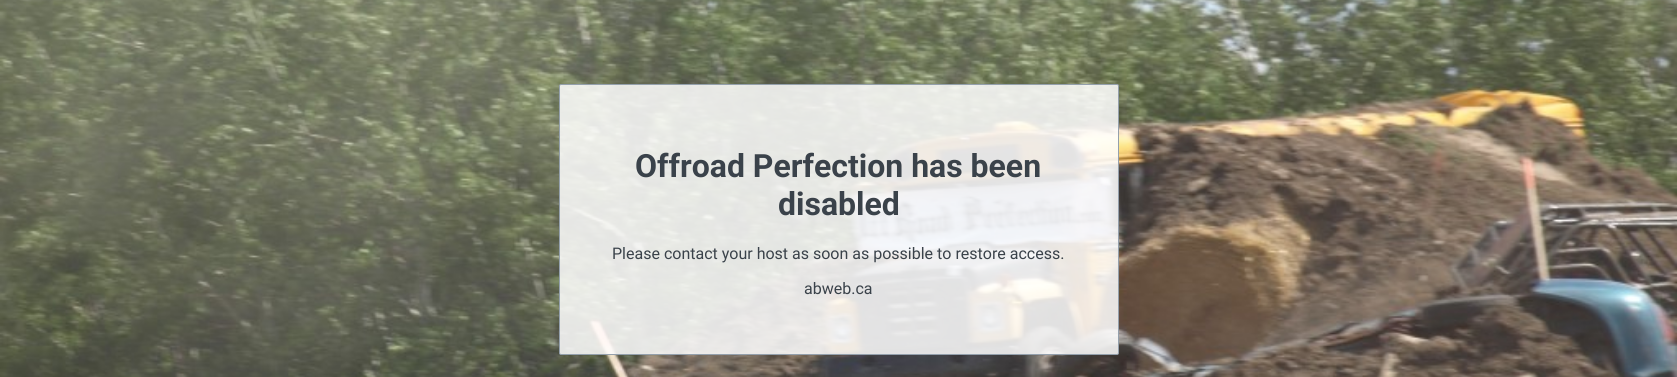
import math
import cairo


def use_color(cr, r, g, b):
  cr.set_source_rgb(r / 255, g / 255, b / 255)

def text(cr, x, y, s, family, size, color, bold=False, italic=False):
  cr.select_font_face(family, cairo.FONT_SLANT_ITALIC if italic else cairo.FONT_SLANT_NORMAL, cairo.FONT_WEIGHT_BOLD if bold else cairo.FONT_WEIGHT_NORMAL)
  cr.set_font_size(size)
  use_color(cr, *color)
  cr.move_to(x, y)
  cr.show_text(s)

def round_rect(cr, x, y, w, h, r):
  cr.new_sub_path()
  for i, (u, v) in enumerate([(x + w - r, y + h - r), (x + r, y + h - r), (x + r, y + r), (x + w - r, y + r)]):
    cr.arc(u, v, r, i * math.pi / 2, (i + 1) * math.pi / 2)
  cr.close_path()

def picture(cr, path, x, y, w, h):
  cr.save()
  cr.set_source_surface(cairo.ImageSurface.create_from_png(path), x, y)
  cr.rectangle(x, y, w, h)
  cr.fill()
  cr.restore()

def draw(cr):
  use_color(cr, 255, 255, 255)
  cr.paint()
  picture(cr, "img_01.png", 0, 0, 1677, 377)
  cr.set_source_rgba(1, 1, 1, 0.85)
  round_rect(cr, 559.5, 84.5, 559, 270, 1.5)
  cr.fill_preserve()
  use_color(cr, 148, 160, 172)
  cr.set_line_width(1)
  cr.stroke()
  text(cr, 635, 177, "Offroad Perfection has been", "Roboto", 32, (58, 66, 74), bold=True)
  text(cr, 778, 215, "disabled", "Roboto", 32, (58, 66, 74), bold=True)
  text(cr, 612, 259, "Please contact your host as soon as possible to restore access.", "Roboto", 16, (58, 66, 74))
  text(cr, 804, 294, "abweb.ca", "Roboto", 16, (58, 66, 74))


surface = cairo.ImageSurface(cairo.FORMAT_RGB24, 1677, 377)
cr = cairo.Context(surface)
options = cairo.FontOptions()
options.set_hint_metrics(cairo.HINT_METRICS_OFF)
options.set_hint_style(cairo.HINT_STYLE_NONE)
cr.set_font_options(options)
cr.set_miter_limit(4)
draw(cr)
surface.write_to_png("out.png")
